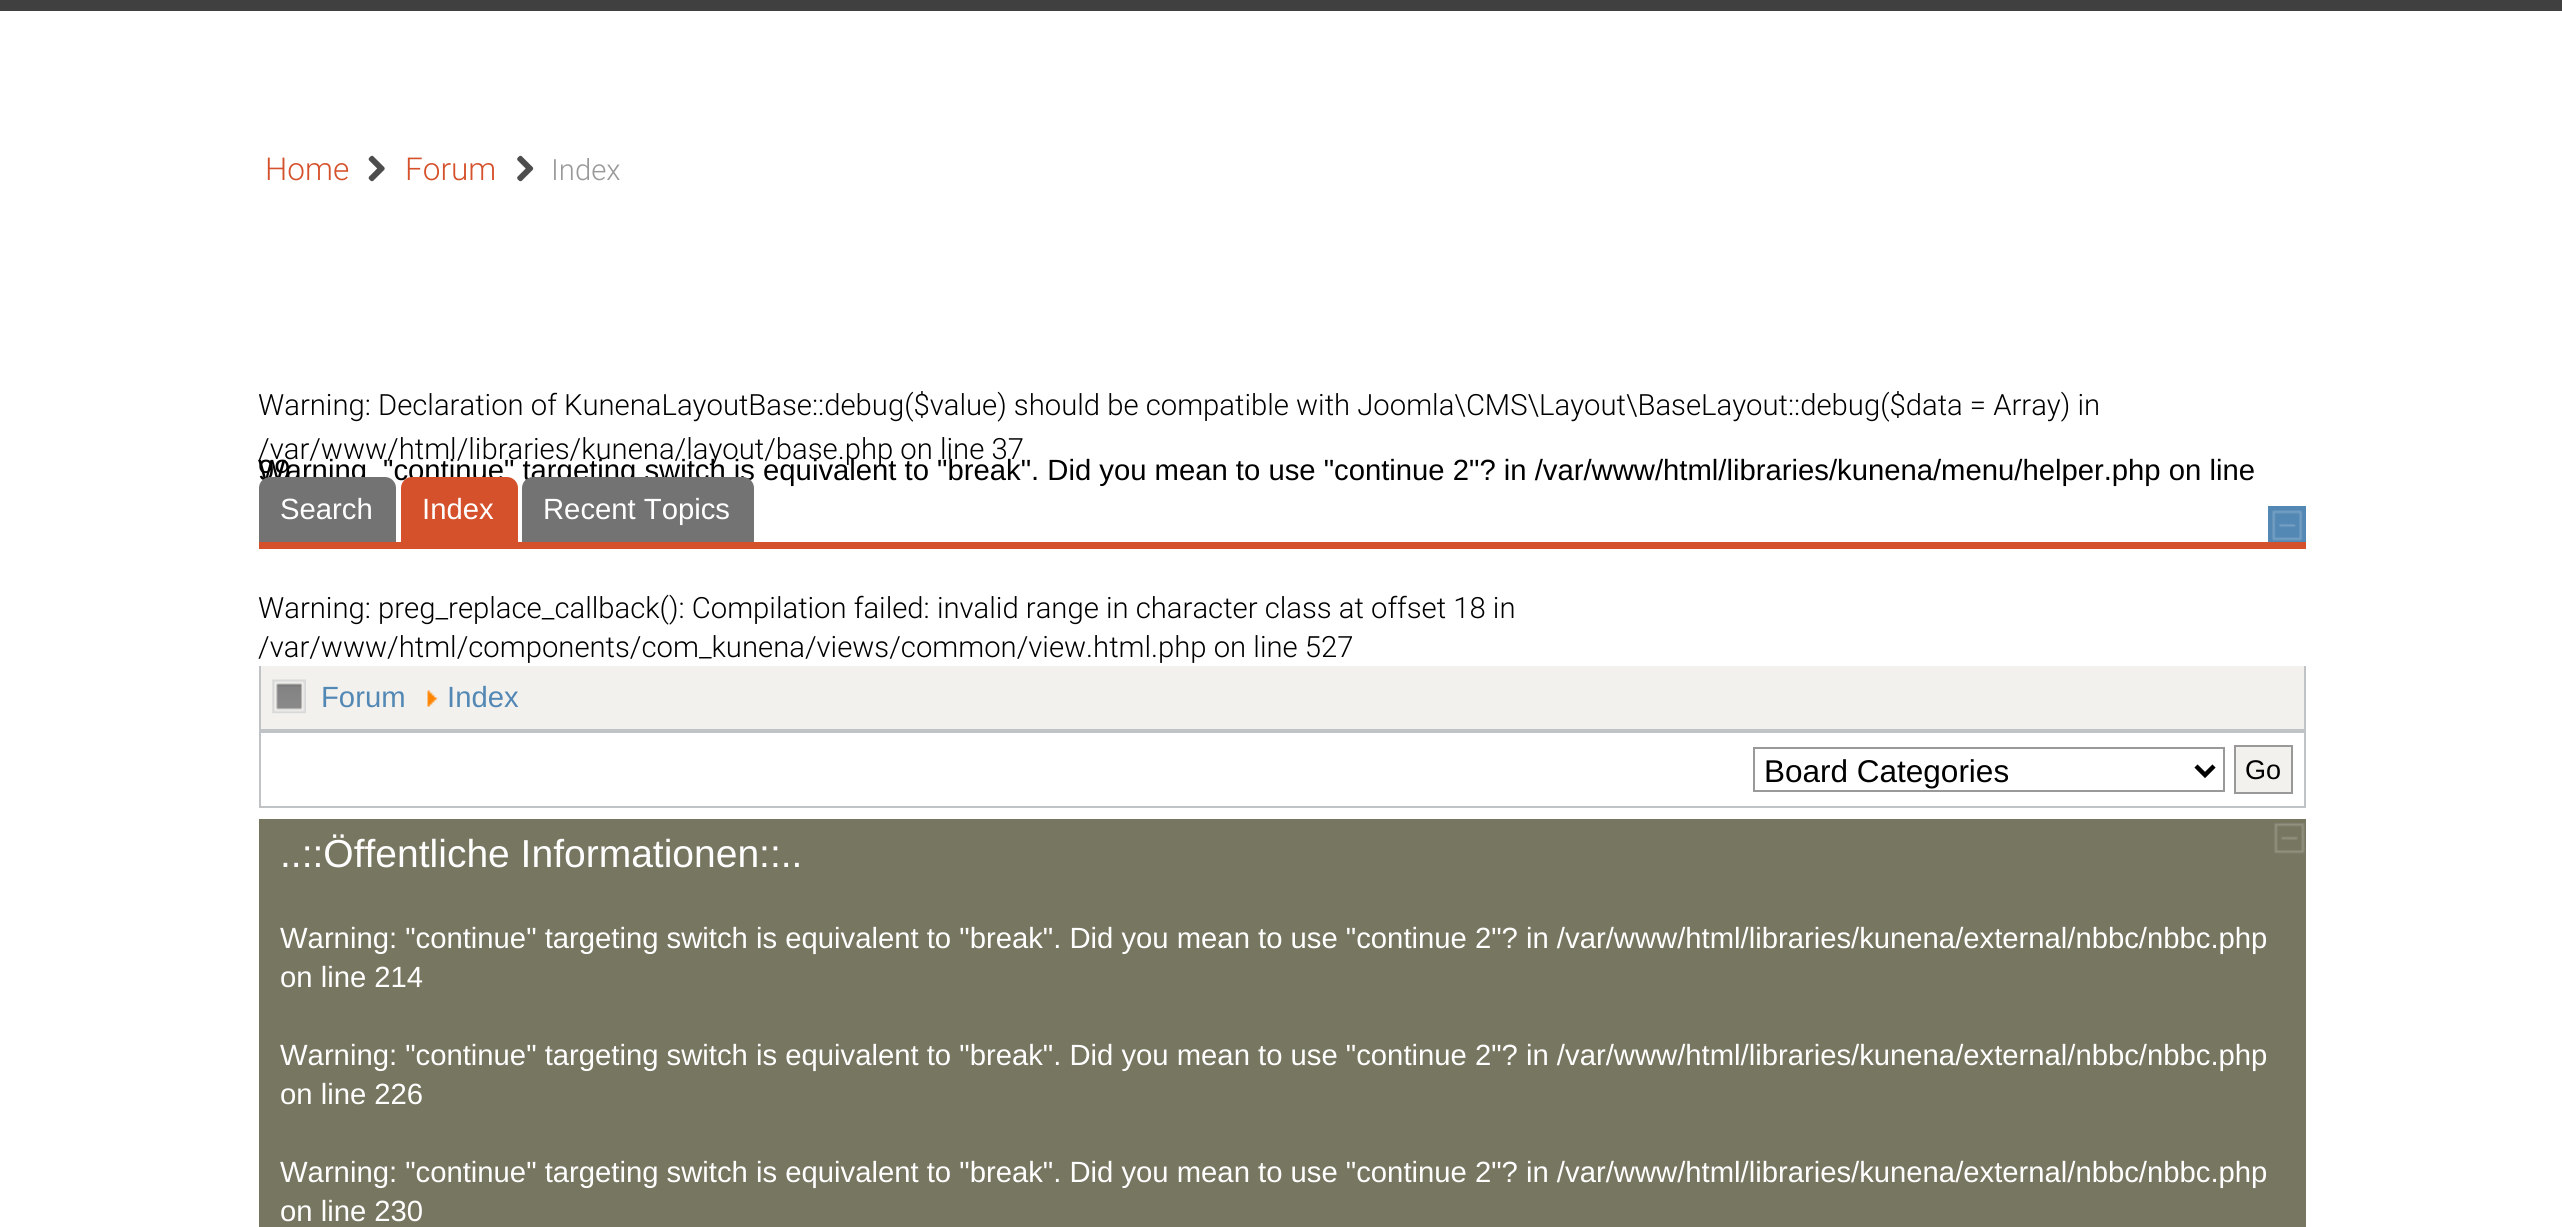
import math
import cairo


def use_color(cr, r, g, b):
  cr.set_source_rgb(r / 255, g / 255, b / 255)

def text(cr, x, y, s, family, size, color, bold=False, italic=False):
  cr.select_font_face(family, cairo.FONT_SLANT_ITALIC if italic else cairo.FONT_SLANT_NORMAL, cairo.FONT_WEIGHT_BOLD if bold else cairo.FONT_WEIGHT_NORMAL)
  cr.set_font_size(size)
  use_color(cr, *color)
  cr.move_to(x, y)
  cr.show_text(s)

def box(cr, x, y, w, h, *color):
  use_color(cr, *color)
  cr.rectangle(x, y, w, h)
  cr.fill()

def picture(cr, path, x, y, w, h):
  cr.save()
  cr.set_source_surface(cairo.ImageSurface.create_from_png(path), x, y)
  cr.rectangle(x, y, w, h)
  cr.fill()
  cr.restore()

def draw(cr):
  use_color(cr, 255, 255, 255)
  cr.paint()
  box(cr, 0, 0, 2562, 11, 64, 64, 64)
  picture(cr, "img_01.png", 368, 155, 17, 27)
  picture(cr, "img_02.png", 517, 155, 17, 27)
  box(cr, 259, 542, 2047, 7, 213, 81, 43)
  box(cr, 2268, 506, 38, 36, 83, 136, 180)
  picture(cr, "img_03.png", 2272, 510, 31, 31)
  box(cr, 259, 729, 2047, 2, 191, 195, 198)
  box(cr, 261, 666, 2043, 63, 242, 241, 238)
  box(cr, 2304, 666, 2, 63, 191, 195, 198)
  box(cr, 259, 666, 2, 63, 191, 195, 198)
  picture(cr, "img_04.png", 272, 679, 34, 35)
  picture(cr, "img_05.png", 427, 690, 11, 17)
  cr.rectangle(260, 732, 2045, 75)
  cr.stroke()
  cr.rectangle(1754, 748, 470, 43)
  use_color(cr, 153, 153, 153)
  cr.stroke()
  cr.new_path()
  cr.move_to(2196, 766)
  cr.line_to(2205, 775)
  cr.line_to(2214, 766)
  use_color(cr, 0, 0, 0)
  cr.set_line_width(4.5)
  cr.stroke()
  use_color(cr, 242, 241, 238)
  cr.rectangle(2235, 746, 57, 47)
  cr.fill_preserve()
  use_color(cr, 153, 153, 153)
  cr.set_line_width(2)
  cr.stroke()
  box(cr, 259, 819, 2047, 408, 119, 118, 97)
  picture(cr, "img_06.png", 2274, 823, 31, 31)
  text(cr, 265, 180, "Home", "Roboto Light", 31.5, (213, 81, 43))
  text(cr, 405, 180, "Forum", "Roboto Light", 31.5, (213, 81, 43))
  text(cr, 551, 180, "Index", "Roboto Light", 29.25, (153, 153, 153))
  text(cr, 258, 415, "Warning: Declaration of KunenaLayoutBase::debug($value) should be compatible with Joomla\\CMS\\Layout\\BaseLayout::debug($data = Array) in", "Roboto Light", 29.25, (0, 0, 0))
  text(cr, 258, 459, "/var/www/html/libraries/kunena/layout/base.php on line 37", "Roboto Light", 29.25, (0, 0, 0))
  text(cr, 258, 480, "Warning", "Liberation Sans", 29.25, (0, 0, 0))
  text(cr, 383, 480, "\"continue\" targeting switch is equivalent to \"break\". Did you mean to use \"continue 2\"? in /var/www/html/libraries/kunena/menu/helper.php on line", "Liberation Sans", 29.25, (0, 0, 0))
  text(cr, 258, 480, "99", "Liberation Sans", 29.25, (0, 0, 0))
  use_color(cr, 115, 115, 115)
  cr.new_path()
  cr.move_to(270, 477)
  cr.line_to(385, 477)
  cr.curve_to(391, 477, 396, 482, 396, 488)
  cr.line_to(396, 542)
  cr.line_to(259, 542)
  cr.line_to(259, 488)
  cr.curve_to(259, 482, 264, 477, 270, 477)
  cr.close_path()
  cr.fill()
  text(cr, 280, 519, "Search", "Liberation Sans", 29.25, (255, 255, 255))
  use_color(cr, 213, 81, 43)
  cr.new_path()
  cr.move_to(412, 477)
  cr.line_to(507, 477)
  cr.curve_to(513, 477, 518, 482, 518, 488)
  cr.line_to(518, 542)
  cr.line_to(401, 542)
  cr.line_to(401, 488)
  cr.curve_to(401, 482, 406, 477, 412, 477)
  cr.close_path()
  cr.fill()
  text(cr, 422, 519, "Index", "Liberation Sans", 29.25, (255, 255, 255))
  use_color(cr, 115, 115, 115)
  cr.new_path()
  cr.move_to(533, 477)
  cr.line_to(743, 477)
  cr.curve_to(749, 477, 754, 482, 754, 488)
  cr.line_to(754, 542)
  cr.line_to(522, 542)
  cr.line_to(522, 488)
  cr.curve_to(522, 482, 527, 477, 533, 477)
  cr.close_path()
  cr.fill()
  text(cr, 543, 519, "Recent Topics", "Liberation Sans", 29.25, (255, 255, 255))
  text(cr, 258, 618, "Warning: preg_replace_callback(): Compilation failed: invalid range in character class at offset 18 in", "Roboto Light", 29.25, (0, 0, 0))
  text(cr, 258, 657, "/var/www/html/components/com_kunena/views/common/view.html.php on line 527", "Roboto Light", 29.25, (0, 0, 0))
  text(cr, 321, 707, "Forum", "Liberation Sans", 29.25, (83, 136, 180))
  text(cr, 447, 707, "Index", "Liberation Sans", 29.25, (83, 136, 180))
  text(cr, 1764, 782, "Board Categories", "Liberation Sans", 31.5, (0, 0, 0))
  text(cr, 2245, 779, "Go", "Liberation Sans", 27, (0, 0, 0))
  text(cr, 280, 867, "..::Öffentliche Informationen::..", "Liberation Sans", 39, (255, 255, 255))
  text(cr, 280, 948, "Warning: \"continue\" targeting switch is equivalent to \"break\". Did you mean to use \"continue 2\"? in /var/www/html/libraries/kunena/external/nbbc/nbbc.php", "Liberation Sans", 29.25, (255, 255, 255))
  text(cr, 280, 987, "on line 214", "Liberation Sans", 29.25, (255, 255, 255))
  text(cr, 280, 1065, "Warning: \"continue\" targeting switch is equivalent to \"break\". Did you mean to use \"continue 2\"? in /var/www/html/libraries/kunena/external/nbbc/nbbc.php", "Liberation Sans", 29.25, (255, 255, 255))
  text(cr, 280, 1104, "on line 226", "Liberation Sans", 29.25, (255, 255, 255))
  text(cr, 280, 1182, "Warning: \"continue\" targeting switch is equivalent to \"break\". Did you mean to use \"continue 2\"? in /var/www/html/libraries/kunena/external/nbbc/nbbc.php", "Liberation Sans", 29.25, (255, 255, 255))
  text(cr, 280, 1221, "on line 230", "Liberation Sans", 29.25, (255, 255, 255))


surface = cairo.ImageSurface(cairo.FORMAT_RGB24, 2562, 1227)
cr = cairo.Context(surface)
options = cairo.FontOptions()
options.set_hint_metrics(cairo.HINT_METRICS_OFF)
options.set_hint_style(cairo.HINT_STYLE_NONE)
cr.set_font_options(options)
cr.set_miter_limit(4)
draw(cr)
surface.write_to_png("out.png")
